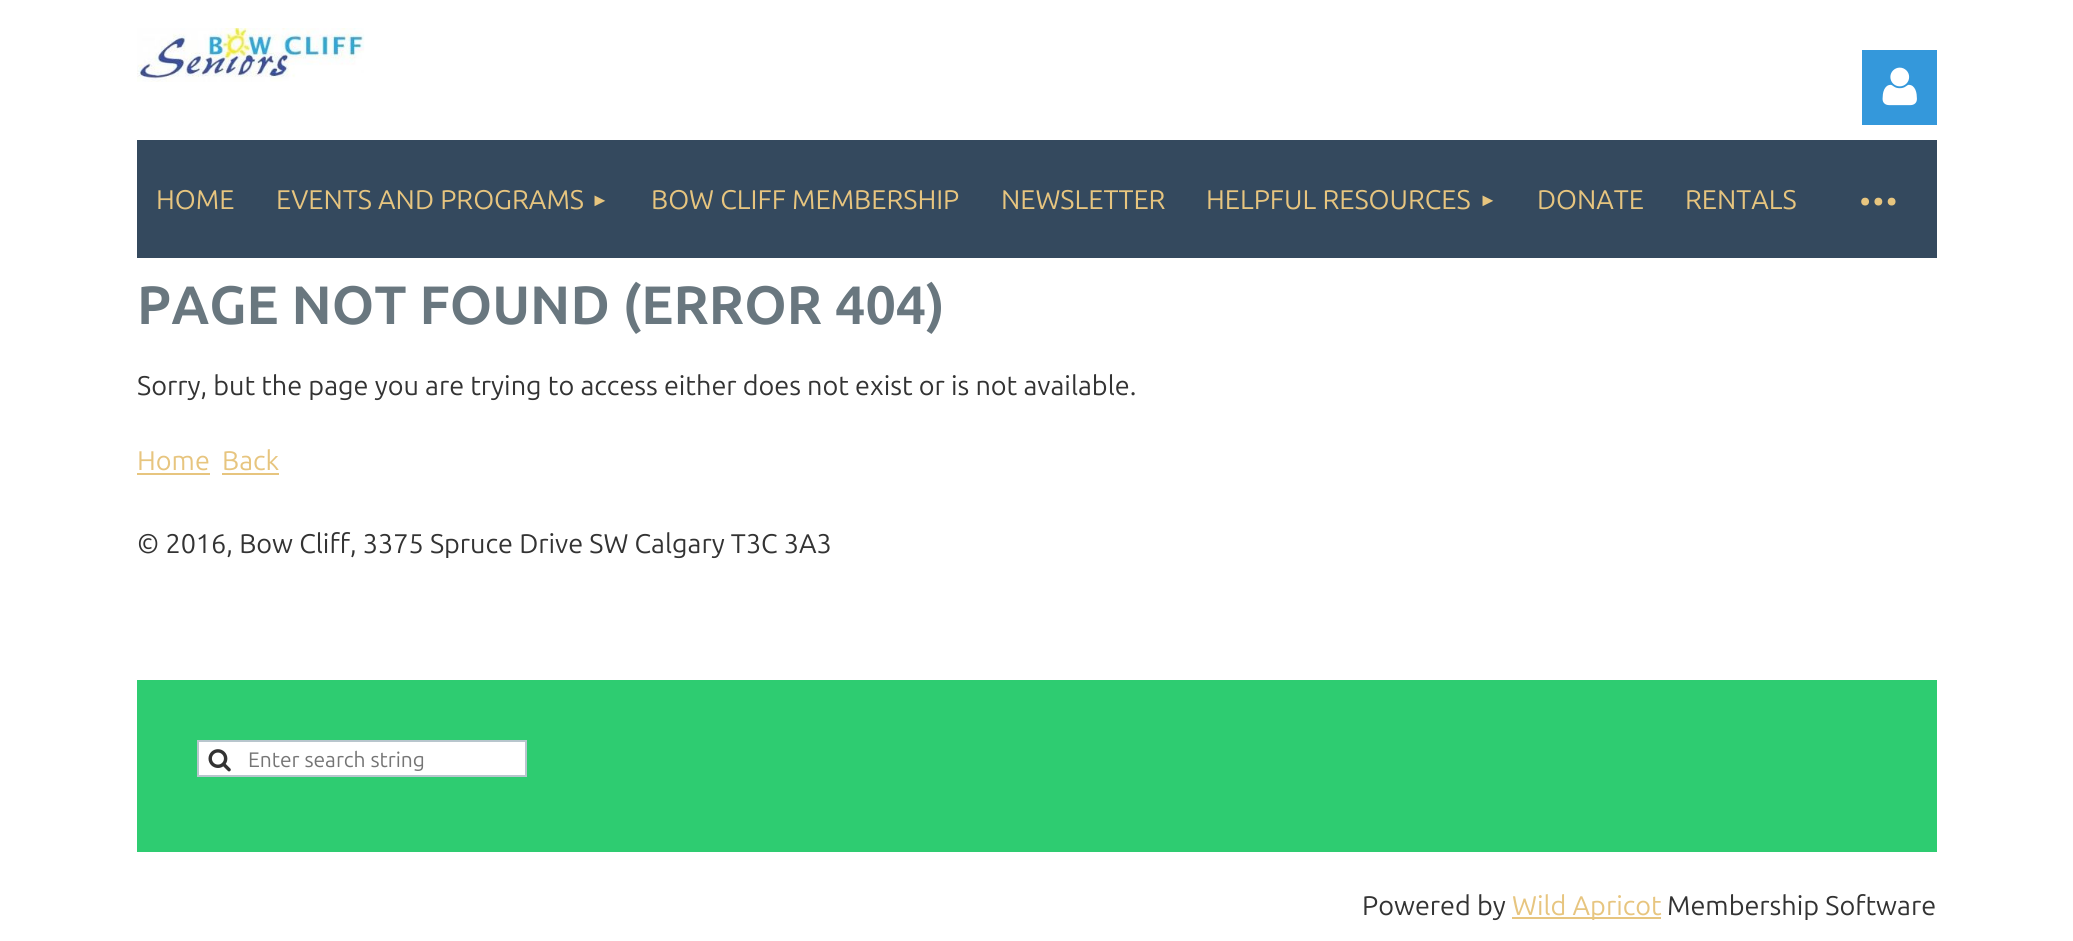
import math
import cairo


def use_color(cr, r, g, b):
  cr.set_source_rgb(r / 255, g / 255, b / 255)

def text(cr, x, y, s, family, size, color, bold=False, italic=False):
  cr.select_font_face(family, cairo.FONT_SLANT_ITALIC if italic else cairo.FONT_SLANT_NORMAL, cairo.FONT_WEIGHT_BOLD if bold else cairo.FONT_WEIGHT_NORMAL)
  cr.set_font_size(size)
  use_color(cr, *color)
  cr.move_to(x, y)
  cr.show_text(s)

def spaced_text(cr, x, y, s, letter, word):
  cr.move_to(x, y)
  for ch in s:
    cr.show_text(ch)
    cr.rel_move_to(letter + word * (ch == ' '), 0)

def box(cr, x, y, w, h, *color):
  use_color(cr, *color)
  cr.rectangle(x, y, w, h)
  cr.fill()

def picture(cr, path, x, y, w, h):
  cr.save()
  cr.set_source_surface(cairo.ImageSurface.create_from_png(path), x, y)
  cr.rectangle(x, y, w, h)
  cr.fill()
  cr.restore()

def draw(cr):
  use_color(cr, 255, 255, 255)
  cr.paint()
  picture(cr, "img_01.png", 137, 28, 228, 54)
  box(cr, 1862, 50, 75, 75, 52, 152, 219)
  picture(cr, "img_02.png", 1882, 67, 35, 39)
  box(cr, 137, 140, 1800, 118, 52, 73, 94)
  box(cr, 137, 473, 73, 2, 231, 197, 127)
  box(cr, 222, 473, 57, 2, 231, 197, 127)
  box(cr, 137, 680, 1800, 172, 46, 204, 113)
  use_color(cr, 255, 255, 255)
  cr.rectangle(198, 741, 328, 35)
  cr.fill_preserve()
  use_color(cr, 184, 198, 205)
  cr.stroke()
  picture(cr, "img_03.png", 208, 749, 23, 23)
  box(cr, 1512, 917, 149, 2, 231, 197, 127)
  text(cr, 156, 209, "HOME", "Ubuntu", 27, (231, 197, 127))
  text(cr, 276, 209, "EVENTS AND PROGRAMS", "Ubuntu", 27, (231, 197, 127))
  text(cr, 591, 206, "►", "Liberation Sans", 18, (231, 197, 127))
  text(cr, 651, 209, "BOW CLIFF MEMBERSHIP", "Ubuntu", 27, (231, 197, 127))
  text(cr, 1001, 209, "NEWSLETTER", "Ubuntu", 27, (231, 197, 127))
  text(cr, 1206, 209, "HELPFUL RESOURCES", "Ubuntu", 27, (231, 197, 127))
  text(cr, 1479, 206, "►", "Liberation Sans", 18, (231, 197, 127))
  text(cr, 1537, 209, "DONATE", "Ubuntu", 27, (231, 197, 127))
  text(cr, 1685, 209, "RENTALS", "Ubuntu", 27, (231, 197, 127))
  cr.set_font_size(66)
  spaced_text(cr, 1857, 221, "···", -3, 0)
  text(cr, 137, 324, "PAGE NOT FOUND (ERROR 404)", "Ubuntu", 54, (105, 119, 127), bold=True)
  text(cr, 137, 395, "Sorry, but the page you are trying to access either does not exist or is not available.", "Ubuntu", 27, (51, 51, 51))
  text(cr, 137, 470, "Home", "Ubuntu", 27, (231, 197, 127))
  text(cr, 222, 470, "Back", "Ubuntu", 27, (231, 197, 127))
  text(cr, 137, 553, "© 2016, Bow Cliff, 3375 Spruce Drive SW Calgary T3C 3A3", "Ubuntu", 27, (51, 51, 51))
  text(cr, 248, 767, "Enter search string", "Ubuntu", 21, (117, 117, 117))
  text(cr, 1362, 915, "Powered by", "Ubuntu", 27, (51, 51, 51))
  text(cr, 1512, 915, "Wild Apricot", "Ubuntu", 27, (231, 197, 127))
  text(cr, 1667, 915, "Membership Software", "Ubuntu", 27, (51, 51, 51))


surface = cairo.ImageSurface(cairo.FORMAT_RGB24, 2073, 941)
cr = cairo.Context(surface)
options = cairo.FontOptions()
options.set_hint_metrics(cairo.HINT_METRICS_OFF)
options.set_hint_style(cairo.HINT_STYLE_NONE)
cr.set_font_options(options)
cr.set_miter_limit(4)
draw(cr)
surface.write_to_png("out.png")
